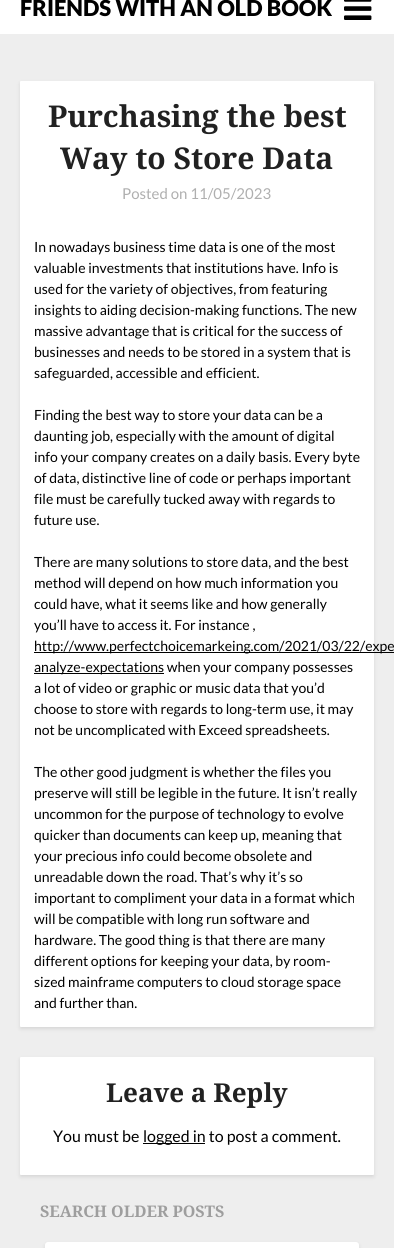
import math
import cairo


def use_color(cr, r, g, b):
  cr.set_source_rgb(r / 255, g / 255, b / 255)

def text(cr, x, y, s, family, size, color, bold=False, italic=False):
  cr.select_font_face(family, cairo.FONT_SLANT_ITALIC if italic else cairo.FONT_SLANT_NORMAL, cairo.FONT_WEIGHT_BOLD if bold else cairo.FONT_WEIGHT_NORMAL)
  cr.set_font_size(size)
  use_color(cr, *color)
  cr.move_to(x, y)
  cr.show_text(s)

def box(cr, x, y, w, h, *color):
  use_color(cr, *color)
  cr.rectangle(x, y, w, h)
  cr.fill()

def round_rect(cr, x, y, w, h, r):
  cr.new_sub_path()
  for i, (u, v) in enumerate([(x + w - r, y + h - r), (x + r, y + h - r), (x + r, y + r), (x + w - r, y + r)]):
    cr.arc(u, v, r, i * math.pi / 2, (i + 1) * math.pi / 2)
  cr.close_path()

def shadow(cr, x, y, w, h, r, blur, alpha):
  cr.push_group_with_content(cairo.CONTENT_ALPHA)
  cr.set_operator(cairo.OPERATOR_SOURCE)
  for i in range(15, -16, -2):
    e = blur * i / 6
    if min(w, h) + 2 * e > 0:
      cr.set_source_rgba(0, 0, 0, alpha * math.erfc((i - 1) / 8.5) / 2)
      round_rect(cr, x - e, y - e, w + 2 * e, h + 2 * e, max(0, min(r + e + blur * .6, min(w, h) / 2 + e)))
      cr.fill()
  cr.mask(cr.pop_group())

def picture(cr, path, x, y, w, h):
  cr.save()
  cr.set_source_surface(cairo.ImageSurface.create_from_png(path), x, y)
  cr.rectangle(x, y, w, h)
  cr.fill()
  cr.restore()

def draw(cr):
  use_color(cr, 238, 238, 238)
  cr.paint()
  box(cr, 0, 0, 394, 34, 255, 255, 255)
  picture(cr, "img_01.png", 344, 0, 28, 20)
  use_color(cr, 0, 0, 0)
  shadow(cr, 20, 83, 354, 946, 1, 2, 0.1)
  use_color(cr, 255, 255, 255)
  round_rect(cr, 20, 81, 354, 946, 1)
  cr.fill()
  box(cr, 34, 652, 360, 1, 0, 0, 0)
  box(cr, 34, 673, 130, 1, 0, 0, 0)
  use_color(cr, 0, 0, 0)
  shadow(cr, 20, 1059, 354, 118, 1, 2, 0.1)
  use_color(cr, 255, 255, 255)
  round_rect(cr, 20, 1057, 354, 118, 1)
  cr.fill()
  box(cr, 143, 1143, 62, 1, 0, 0, 0)
  use_color(cr, 0, 0, 0)
  shadow(cr, 45, 1244, 314, 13, 3, 2, 0.1)
  use_color(cr, 255, 255, 255)
  round_rect(cr, 45, 1242, 314, 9, 3)
  cr.fill()
  text(cr, 20, 16, "FRIENDS WITH AN OLD BOOK", "Lato Black", 22, (0, 0, 0))
  text(cr, 48, 127, "Purchasing the best", "Noto Serif", 30, (33, 33, 33), bold=True)
  text(cr, 60, 169, "Way to Store Data", "Noto Serif", 30, (33, 33, 33), bold=True)
  text(cr, 122, 199, "Posted on 11/05/2023", "Lato", 15, (175, 175, 175))
  text(cr, 34, 252, "In nowadays business time data is one of the most", "Lato", 14, (0, 0, 0))
  text(cr, 34, 273, "valuable investments that institutions have. Info is", "Lato", 14, (0, 0, 0))
  text(cr, 34, 294, "used for the variety of objectives, from featuring", "Lato", 14, (0, 0, 0))
  text(cr, 34, 315, "insights to aiding decision-making functions. The new", "Lato", 14, (0, 0, 0))
  text(cr, 34, 336, "massive advantage that is critical for the success of", "Lato", 14, (0, 0, 0))
  text(cr, 34, 357, "businesses and needs to be stored in a system that is", "Lato", 14, (0, 0, 0))
  text(cr, 34, 378, "safeguarded, accessible and efficient.", "Lato", 14, (0, 0, 0))
  text(cr, 34, 420, "Finding the best way to store your data can be a", "Lato", 14, (0, 0, 0))
  text(cr, 34, 441, "daunting job, especially with the amount of digital", "Lato", 14, (0, 0, 0))
  text(cr, 34, 462, "info your company creates on a daily basis. Every byte", "Lato", 14, (0, 0, 0))
  text(cr, 34, 483, "of data, distinctive line of code or perhaps important", "Lato", 14, (0, 0, 0))
  text(cr, 34, 504, "file must be carefully tucked away with regards to", "Lato", 14, (0, 0, 0))
  text(cr, 34, 525, "future use.", "Lato", 14, (0, 0, 0))
  text(cr, 34, 567, "There are many solutions to store data, and the best", "Lato", 14, (0, 0, 0))
  text(cr, 34, 588, "method will depend on how much information you", "Lato", 14, (0, 0, 0))
  text(cr, 34, 609, "could have, what it seems like and how generally", "Lato", 14, (0, 0, 0))
  text(cr, 34, 630, "you’ll have to access it. For instance ,", "Lato", 14, (0, 0, 0))
  text(cr, 34, 651, "http://www.perfectchoicemarkeing.com/2021/03/22/expe", "Lato", 14, (0, 0, 0))
  text(cr, 34, 672, "analyze-expectations when your company possesses", "Lato", 14, (0, 0, 0))
  text(cr, 34, 693, "a lot of video or graphic or music data that you’d", "Lato", 14, (0, 0, 0))
  text(cr, 34, 714, "choose to store with regards to long-term use, it may", "Lato", 14, (0, 0, 0))
  text(cr, 34, 735, "not be uncomplicated with Exceed spreadsheets.", "Lato", 14, (0, 0, 0))
  text(cr, 34, 777, "The other good judgment is whether the files you", "Lato", 14, (0, 0, 0))
  text(cr, 34, 798, "preserve will still be legible in the future. It isn’t really", "Lato", 14, (0, 0, 0))
  text(cr, 34, 819, "uncommon for the purpose of technology to evolve", "Lato", 14, (0, 0, 0))
  text(cr, 34, 840, "quicker than documents can keep up, meaning that", "Lato", 14, (0, 0, 0))
  text(cr, 34, 861, "your precious info could become obsolete and", "Lato", 14, (0, 0, 0))
  text(cr, 34, 882, "unreadable down the road. That’s why it’s so", "Lato", 14, (0, 0, 0))
  text(cr, 34, 903, "important to compliment your data in a format which", "Lato", 14, (0, 0, 0))
  text(cr, 34, 924, "will be compatible with long run software and", "Lato", 14, (0, 0, 0))
  text(cr, 34, 945, "hardware. The good thing is that there are many", "Lato", 14, (0, 0, 0))
  text(cr, 34, 966, "different options for keeping your data, by room-", "Lato", 14, (0, 0, 0))
  text(cr, 34, 987, "sized mainframe computers to cloud storage space", "Lato", 14, (0, 0, 0))
  text(cr, 34, 1008, "and further than.", "Lato", 14, (0, 0, 0))
  text(cr, 106, 1102, "Leave a Reply", "Noto Serif", 26, (33, 33, 33), bold=True)
  text(cr, 53, 1142, "You must be", "Lato", 16, (0, 0, 0))
  text(cr, 143, 1142, "logged in to post a comment.", "Lato", 16, (0, 0, 0))
  text(cr, 40, 1217, "SEARCH OLDER POSTS", "Noto Serif", 16, (158, 158, 158), bold=True)


surface = cairo.ImageSurface(cairo.FORMAT_RGB24, 394, 1248)
cr = cairo.Context(surface)
options = cairo.FontOptions()
options.set_hint_metrics(cairo.HINT_METRICS_OFF)
options.set_hint_style(cairo.HINT_STYLE_NONE)
cr.set_font_options(options)
cr.set_miter_limit(4)
draw(cr)
surface.write_to_png("out.png")
